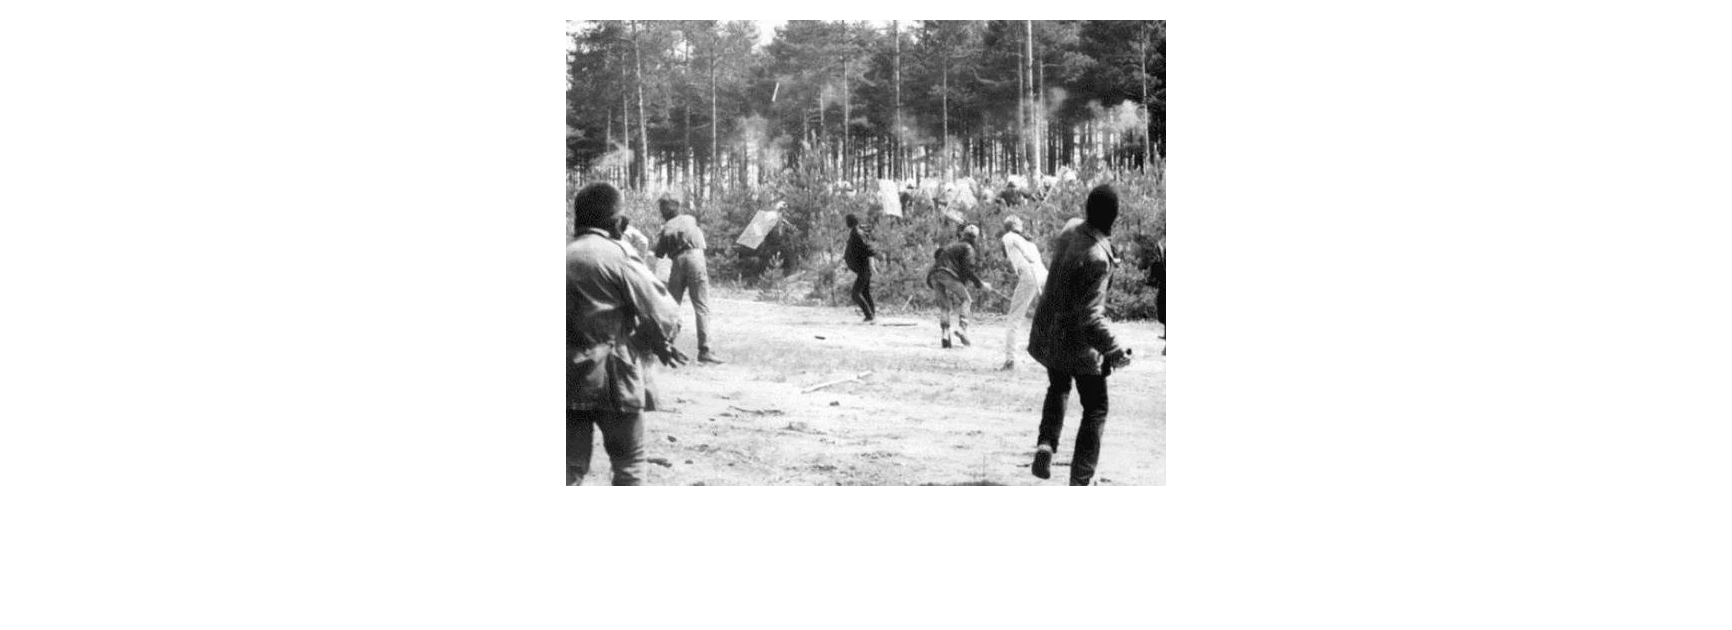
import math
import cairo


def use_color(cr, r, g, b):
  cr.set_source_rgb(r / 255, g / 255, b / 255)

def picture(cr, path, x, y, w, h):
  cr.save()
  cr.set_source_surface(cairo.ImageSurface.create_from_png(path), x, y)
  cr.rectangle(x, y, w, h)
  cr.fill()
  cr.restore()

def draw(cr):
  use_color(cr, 255, 255, 255)
  cr.paint()
  picture(cr, "img_01.png", 566, 20, 600, 466)


surface = cairo.ImageSurface(cairo.FORMAT_RGB24, 1732, 630)
cr = cairo.Context(surface)
options = cairo.FontOptions()
options.set_hint_metrics(cairo.HINT_METRICS_OFF)
options.set_hint_style(cairo.HINT_STYLE_NONE)
cr.set_font_options(options)
cr.set_miter_limit(4)
draw(cr)
surface.write_to_png("out.png")
